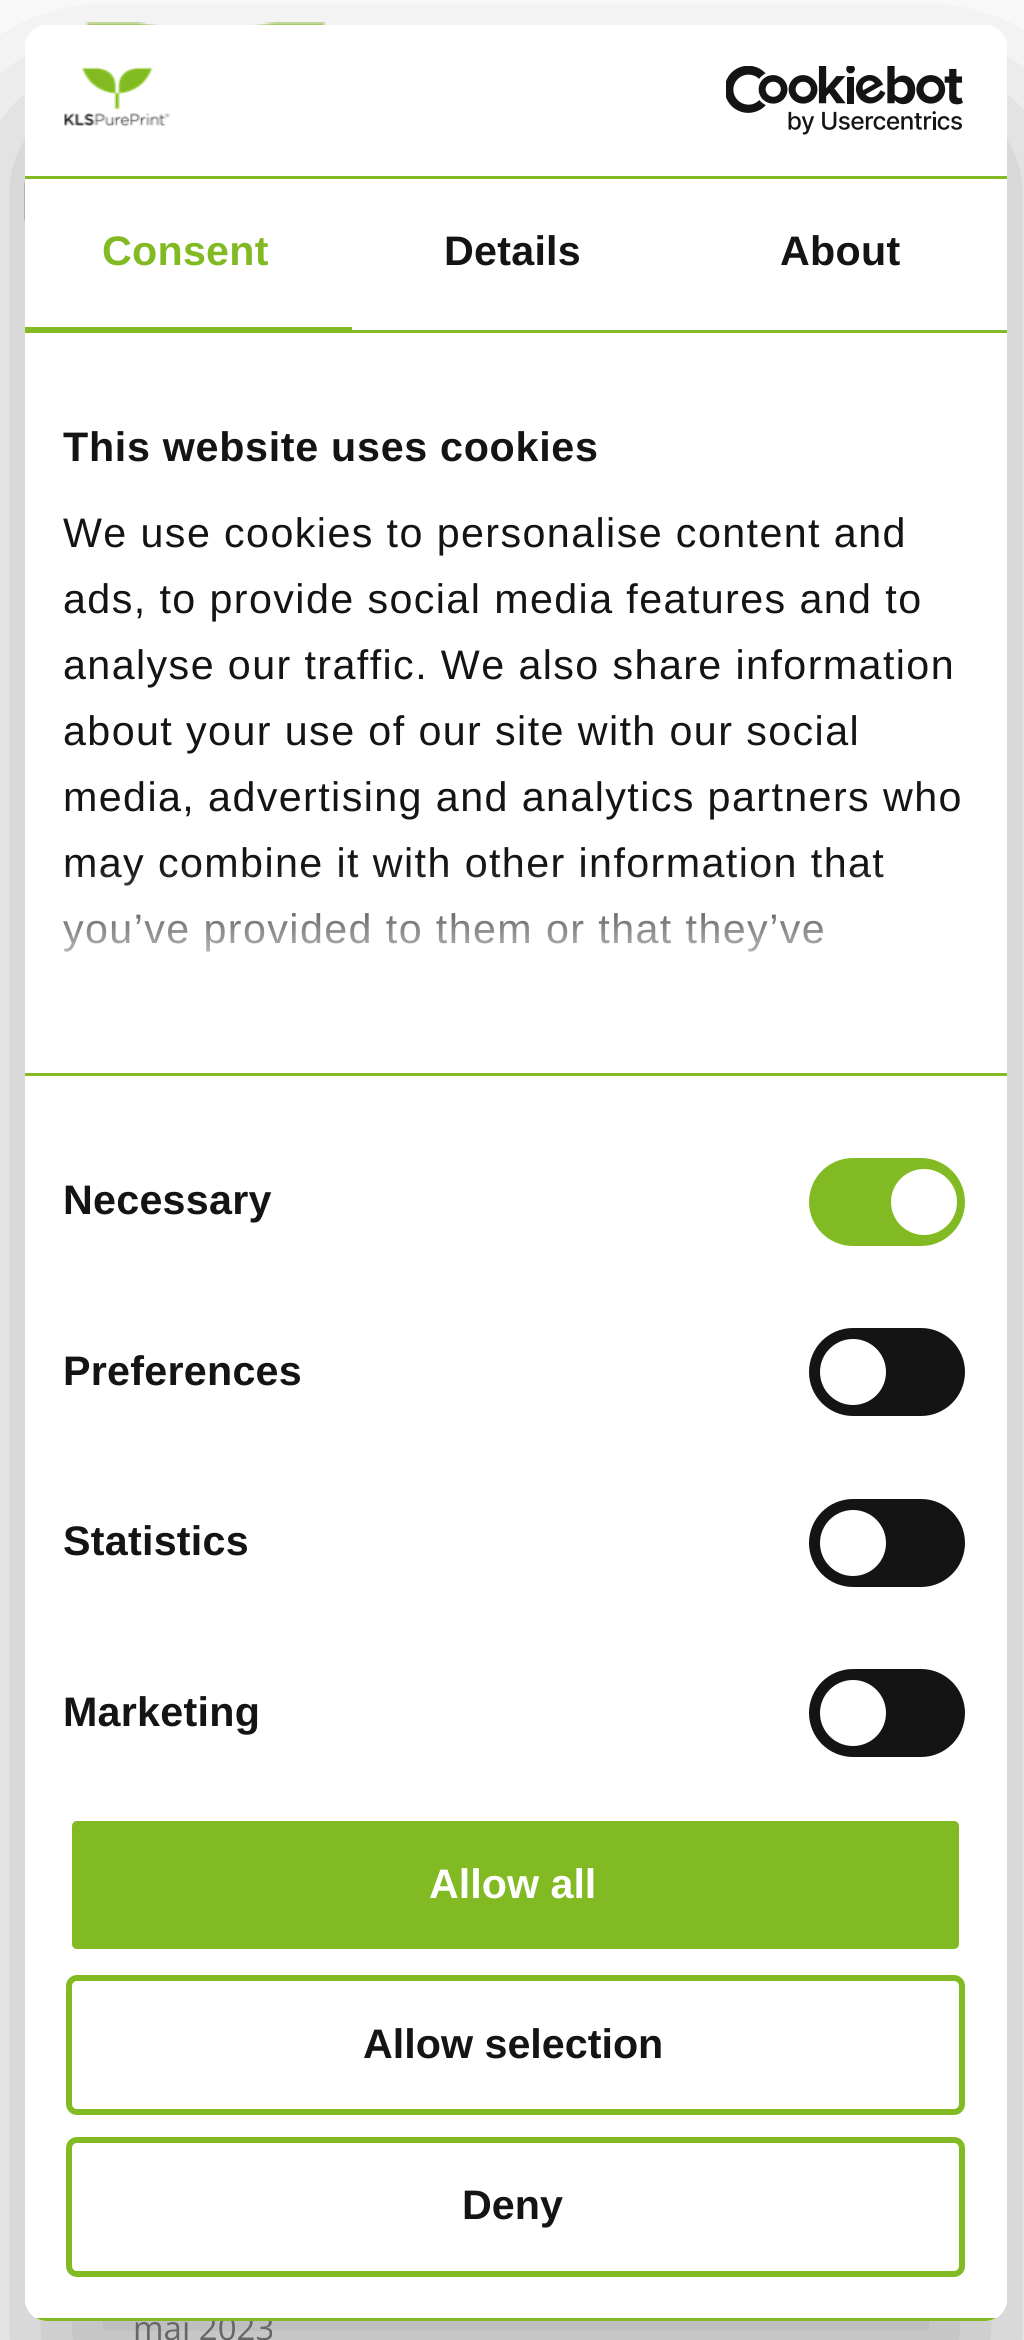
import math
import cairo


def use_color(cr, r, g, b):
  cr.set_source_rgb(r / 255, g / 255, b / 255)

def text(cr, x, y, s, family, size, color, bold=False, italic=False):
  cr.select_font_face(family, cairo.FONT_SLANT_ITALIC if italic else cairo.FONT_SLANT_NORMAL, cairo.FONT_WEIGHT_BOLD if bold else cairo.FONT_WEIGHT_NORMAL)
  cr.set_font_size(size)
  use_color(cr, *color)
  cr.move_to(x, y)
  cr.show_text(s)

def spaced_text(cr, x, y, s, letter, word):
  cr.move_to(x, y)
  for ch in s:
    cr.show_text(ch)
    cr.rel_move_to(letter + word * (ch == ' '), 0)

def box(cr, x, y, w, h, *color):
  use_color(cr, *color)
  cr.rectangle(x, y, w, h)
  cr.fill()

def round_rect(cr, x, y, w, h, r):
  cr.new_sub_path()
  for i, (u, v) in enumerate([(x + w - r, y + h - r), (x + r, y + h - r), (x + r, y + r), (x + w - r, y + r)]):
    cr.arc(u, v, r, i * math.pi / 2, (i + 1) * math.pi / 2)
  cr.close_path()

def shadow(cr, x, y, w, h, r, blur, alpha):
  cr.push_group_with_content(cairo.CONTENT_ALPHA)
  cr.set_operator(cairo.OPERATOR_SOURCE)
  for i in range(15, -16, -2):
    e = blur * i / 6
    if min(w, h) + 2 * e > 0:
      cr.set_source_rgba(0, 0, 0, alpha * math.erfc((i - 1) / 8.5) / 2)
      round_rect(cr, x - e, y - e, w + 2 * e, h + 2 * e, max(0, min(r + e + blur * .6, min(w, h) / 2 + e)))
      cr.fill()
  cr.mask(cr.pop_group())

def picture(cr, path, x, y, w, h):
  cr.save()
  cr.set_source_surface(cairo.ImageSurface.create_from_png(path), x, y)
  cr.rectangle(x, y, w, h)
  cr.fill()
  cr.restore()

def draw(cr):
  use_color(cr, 255, 255, 255)
  cr.paint()
  picture(cr, "img_03.png", 24, 22, 302, 199)
  cr.save()
  cr.set_fill_rule(cairo.FILL_RULE_EVEN_ODD)
  cr.new_path()
  cr.move_to(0, 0)
  cr.line_to(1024, 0)
  cr.line_to(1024, 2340)
  cr.line_to(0, 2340)
  cr.close_path()
  cr.move_to(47, 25)
  cr.line_to(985, 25)
  cr.curve_to(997, 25, 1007, 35, 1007, 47)
  cr.line_to(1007, 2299)
  cr.curve_to(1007, 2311, 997, 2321, 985, 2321)
  cr.line_to(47, 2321)
  cr.curve_to(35, 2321, 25, 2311, 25, 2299)
  cr.line_to(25, 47)
  cr.curve_to(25, 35, 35, 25, 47, 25)
  cr.close_path()
  cr.clip()
  use_color(cr, 0, 0, 0)
  shadow(cr, 25, 113, 982, 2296, 22, 93.5, 0.3)
  cr.restore()
  text(cr, 133, 2340, "maj 2023", "Open Sans", 33, (102, 102, 102))
  use_color(cr, 255, 255, 255)
  round_rect(cr, 25, 25, 982, 2296, 22)
  cr.fill()
  cr.select_font_face("Liberation Sans")
  cr.set_font_size(41.25)
  use_color(cr, 20, 20, 20)
  spaced_text(cr, 63, 943, "you’ve provided to them or that they’ve", 1.4, 0)
  spaced_text(cr, 63, 877, "may combine it with other information that", 1.4, 0)
  gradient = cairo.LinearGradient(496, 1071, 496, 865)
  gradient.add_color_stop_rgba(0, 1, 1, 1, 1)
  gradient.add_color_stop_rgba(0.5, 1, 1, 1, 0.8)
  gradient.add_color_stop_rgba(1, 1, 1, 1, 0)
  cr.set_source(gradient)
  cr.rectangle(63, 868, 820, 84)
  cr.fill()
  round_rect(cr, 69, 2140, 893, 134, 8)
  use_color(cr, 130, 186, 35)
  cr.set_line_width(6)
  cr.stroke()
  text(cr, 462, 2219, "Deny", "Liberation Sans", 41.25, (20, 20, 20), bold=True)
  round_rect(cr, 69, 1978, 893, 134, 8)
  use_color(cr, 130, 186, 35)
  cr.stroke()
  text(cr, 363, 2058, "Allow selection", "Liberation Sans", 41.25, (20, 20, 20), bold=True)
  use_color(cr, 130, 186, 35)
  round_rect(cr, 69, 1818, 893, 134, 8)
  cr.fill_preserve()
  use_color(cr, 255, 255, 255)
  cr.stroke()
  text(cr, 429, 1898, "Allow all", "Liberation Sans", 41.25, (255, 255, 255), bold=True)
  cr.save()
  round_rect(cr, 25, 25, 982, 2296, 22)
  cr.clip()
  box(cr, 36, 2318, 960, 3, 130, 186, 35)
  cr.restore()
  use_color(cr, 20, 20, 20)
  round_rect(cr, 809, 1669, 156, 88, 44)
  cr.fill()
  use_color(cr, 255, 255, 255)
  cr.arc(853, 1713, 33, 0, 2 * math.pi)
  cr.fill()
  use_color(cr, 20, 20, 20)
  round_rect(cr, 809, 1499, 156, 88, 44)
  cr.fill()
  use_color(cr, 255, 255, 255)
  cr.arc(853, 1543, 33, 0, 2 * math.pi)
  cr.fill()
  use_color(cr, 20, 20, 20)
  round_rect(cr, 809, 1328, 156, 88, 44)
  cr.fill()
  use_color(cr, 255, 255, 255)
  cr.arc(853, 1372, 33, 0, 2 * math.pi)
  cr.fill()
  use_color(cr, 130, 186, 35)
  round_rect(cr, 809, 1158, 156, 88, 44)
  cr.fill()
  use_color(cr, 255, 255, 255)
  cr.arc(924, 1202, 33, 0, 2 * math.pi)
  cr.fill()
  cr.select_font_face("Liberation Sans")
  use_color(cr, 20, 20, 20)
  spaced_text(cr, 63, 811, "media, advertising and analytics partners who", 1.4, 0)
  spaced_text(cr, 63, 745, "about your use of our site with our social", 1.4, 0)
  spaced_text(cr, 63, 679, "analyse our traffic. We also share information", 1.4, 0)
  spaced_text(cr, 63, 613, "ads, to provide social media features and to", 1.4, 0)
  spaced_text(cr, 63, 547, "We use cookies to personalise content and", 1.4, 0)
  cr.select_font_face("Liberation Sans", cairo.FONT_SLANT_NORMAL, cairo.FONT_WEIGHT_BOLD)
  spaced_text(cr, 63, 461, "This website uses cookies", 0.7, 0)
  box(cr, 25, 1073, 982, 3, 130, 186, 35)
  use_color(cr, 20, 20, 20)
  spaced_text(cr, 780, 265, "About", 0.25, 0)
  spaced_text(cr, 444, 265, "Details", 0.25, 0)
  use_color(cr, 130, 186, 35)
  spaced_text(cr, 102, 265, "Consent", 0.25, 0)
  box(cr, 25, 327, 327, 3, 130, 186, 35)
  box(cr, 25, 330, 982, 3, 130, 186, 35)
  use_color(cr, 20, 20, 20)
  spaced_text(cr, 63, 1726, "Marketing", 0.25, 0)
  spaced_text(cr, 63, 1555, "Statistics", 0.25, 0)
  spaced_text(cr, 63, 1385, "Preferences", 0.25, 0)
  spaced_text(cr, 63, 1214, "Necessary", 0.25, 0)
  picture(cr, "img_02.png", 726, 66, 237, 69)
  picture(cr, "img_01.png", 64, 67, 106, 60)
  box(cr, 25, 176, 982, 3, 130, 186, 35)


surface = cairo.ImageSurface(cairo.FORMAT_RGB24, 1024, 2340)
cr = cairo.Context(surface)
options = cairo.FontOptions()
options.set_hint_metrics(cairo.HINT_METRICS_OFF)
options.set_hint_style(cairo.HINT_STYLE_NONE)
cr.set_font_options(options)
cr.set_miter_limit(4)
draw(cr)
surface.write_to_png("out.png")
